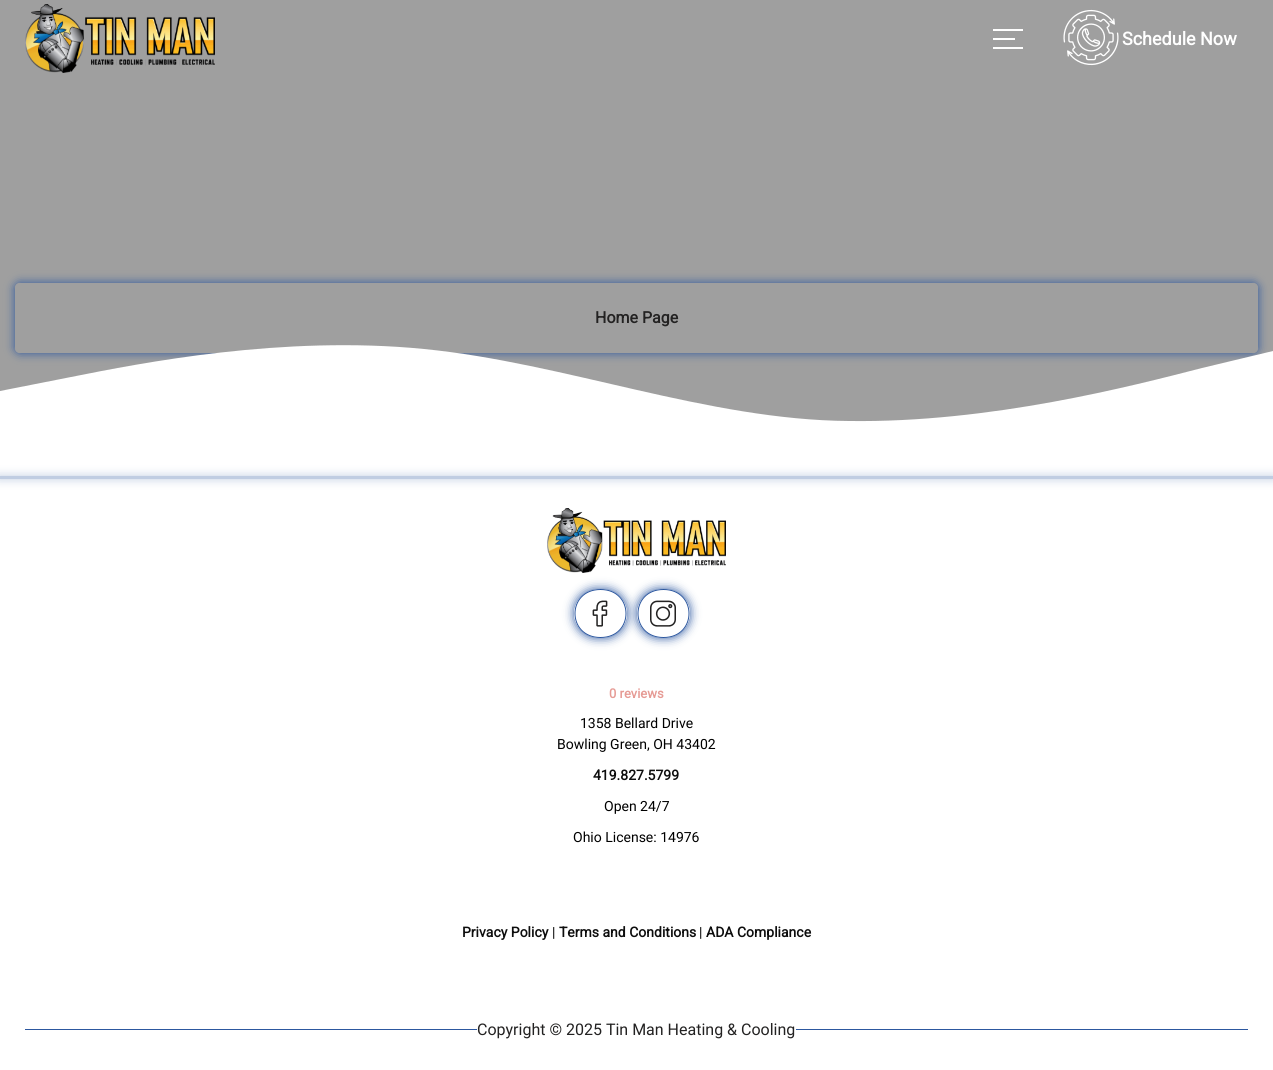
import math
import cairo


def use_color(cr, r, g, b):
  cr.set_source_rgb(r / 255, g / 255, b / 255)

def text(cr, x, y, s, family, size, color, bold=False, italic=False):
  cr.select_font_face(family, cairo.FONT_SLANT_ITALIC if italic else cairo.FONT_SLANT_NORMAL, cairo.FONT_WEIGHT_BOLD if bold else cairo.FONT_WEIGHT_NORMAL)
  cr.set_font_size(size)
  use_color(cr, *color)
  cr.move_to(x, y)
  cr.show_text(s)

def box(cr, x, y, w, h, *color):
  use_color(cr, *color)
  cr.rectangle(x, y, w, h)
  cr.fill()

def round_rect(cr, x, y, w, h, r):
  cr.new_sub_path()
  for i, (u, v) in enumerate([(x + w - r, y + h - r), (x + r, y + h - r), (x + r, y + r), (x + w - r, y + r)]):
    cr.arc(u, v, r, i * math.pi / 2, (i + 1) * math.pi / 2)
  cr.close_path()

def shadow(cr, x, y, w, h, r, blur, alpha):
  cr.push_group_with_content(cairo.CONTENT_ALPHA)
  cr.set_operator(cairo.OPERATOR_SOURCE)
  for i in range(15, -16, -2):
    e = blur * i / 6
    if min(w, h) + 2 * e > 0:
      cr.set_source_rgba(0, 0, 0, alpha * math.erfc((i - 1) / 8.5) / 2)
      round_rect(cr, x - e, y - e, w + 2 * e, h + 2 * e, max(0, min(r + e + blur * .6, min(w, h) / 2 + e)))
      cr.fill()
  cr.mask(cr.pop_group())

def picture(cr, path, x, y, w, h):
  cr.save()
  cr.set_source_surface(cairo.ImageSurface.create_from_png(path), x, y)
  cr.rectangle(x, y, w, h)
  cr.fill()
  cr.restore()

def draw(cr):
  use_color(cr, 255, 255, 255)
  cr.paint()
  box(cr, 0, 0, 1273, 422, 159, 159, 159)
  picture(cr, "img_01.png", 25, 4, 190, 69)
  box(cr, 993, 29, 30, 2, 255, 255, 255)
  box(cr, 993, 38, 22, 2, 255, 255, 255)
  box(cr, 993, 47, 30, 2, 255, 255, 255)
  picture(cr, "img_02.png", 1063, 9, 56, 57)
  cr.save()
  cr.set_fill_rule(cairo.FILL_RULE_EVEN_ODD)
  cr.new_path()
  cr.move_to(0, 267)
  cr.line_to(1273, 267)
  cr.line_to(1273, 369)
  cr.line_to(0, 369)
  cr.close_path()
  cr.move_to(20, 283)
  cr.line_to(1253, 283)
  cr.curve_to(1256, 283, 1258, 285, 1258, 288)
  cr.line_to(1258, 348)
  cr.curve_to(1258, 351, 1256, 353, 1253, 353)
  cr.line_to(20, 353)
  cr.curve_to(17, 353, 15, 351, 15, 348)
  cr.line_to(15, 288)
  cr.curve_to(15, 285, 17, 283, 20, 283)
  cr.close_path()
  cr.clip()
  use_color(cr, 44, 87, 159)
  shadow(cr, 15, 283, 1243, 70, 5, 5, 1)
  cr.restore()
  cr.new_path()
  cr.move_to(0, 391)
  cr.line_to(71, 377)
  cr.curve_to(141, 363, 283, 335, 424, 349)
  cr.curve_to(566, 363, 707, 420, 849, 421)
  cr.curve_to(990, 423, 1132, 386, 1202, 368)
  cr.line_to(1273, 351)
  cr.line_to(1273, 448)
  cr.line_to(0, 448)
  cr.close_path()
  cr.fill()
  use_color(cr, 192, 205, 226)
  shadow(cr, 0, 476, 1273, 3, 0, 5, 1)
  box(cr, 0, 476, 1273, 3, 192, 205, 226)
  picture(cr, "img_03.png", 547, 508, 179, 65)
  cr.save()
  cr.set_fill_rule(cairo.FILL_RULE_EVEN_ODD)
  cr.new_path()
  cr.move_to(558, 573)
  cr.line_to(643, 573)
  cr.line_to(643, 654)
  cr.line_to(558, 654)
  cr.close_path()
  cr.move_to(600.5, 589)
  cr.curve_to(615, 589, 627, 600, 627, 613.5)
  cr.curve_to(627, 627, 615, 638, 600.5, 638)
  cr.curve_to(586, 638, 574, 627, 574, 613.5)
  cr.curve_to(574, 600, 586, 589, 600.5, 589)
  cr.close_path()
  cr.clip()
  use_color(cr, 44, 87, 159)
  shadow(cr, 574, 589, 53, 49, 24.5, 5, 1)
  cr.restore()
  cr.new_path()
  cr.move_to(600.5, 589.5)
  cr.curve_to(634.5, 589.5, 634.5, 637.5, 600.5, 637.5)
  cr.curve_to(566.5, 637.5, 566.5, 589.5, 600.5, 589.5)
  cr.close_path()
  use_color(cr, 44, 87, 159)
  cr.set_line_width(1)
  cr.stroke()
  picture(cr, "img_04.png", 592, 600, 16, 27)
  cr.save()
  cr.set_fill_rule(cairo.FILL_RULE_EVEN_ODD)
  cr.new_path()
  cr.move_to(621, 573)
  cr.line_to(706, 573)
  cr.line_to(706, 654)
  cr.line_to(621, 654)
  cr.close_path()
  cr.move_to(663.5, 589)
  cr.curve_to(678, 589, 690, 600, 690, 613.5)
  cr.curve_to(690, 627, 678, 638, 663.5, 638)
  cr.curve_to(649, 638, 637, 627, 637, 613.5)
  cr.curve_to(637, 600, 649, 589, 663.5, 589)
  cr.close_path()
  cr.clip()
  use_color(cr, 44, 87, 159)
  shadow(cr, 637, 589, 53, 49, 24.5, 5, 1)
  cr.restore()
  cr.new_path()
  cr.move_to(663.5, 589.5)
  cr.curve_to(697.5, 589.5, 697.5, 637.5, 663.5, 637.5)
  cr.curve_to(629.5, 637.5, 629.5, 589.5, 663.5, 589.5)
  cr.close_path()
  cr.stroke()
  picture(cr, "img_05.png", 650, 600, 26, 27)
  box(cr, 25, 1029, 452, 1, 44, 87, 159)
  box(cr, 796, 1029, 452, 1, 44, 87, 159)
  text(cr, 1122, 45, "Schedule Now", "Roboto", 18, (255, 255, 255), bold=True)
  text(cr, 595, 323, "Home Page", "Roboto", 16, (35, 34, 34), bold=True)
  text(cr, 609, 698, "0 reviews", "Roboto", 13, (230, 155, 149), bold=True)
  text(cr, 580, 728, "1358 Bellard Drive", "Roboto", 14, (0, 0, 0))
  text(cr, 557, 749, "Bowling Green, OH 43402", "Roboto", 14, (0, 0, 0))
  text(cr, 593, 780, "419.827.5799", "Roboto", 14, (13, 13, 13), bold=True)
  text(cr, 604, 811, "Open 24/7", "Roboto", 14, (0, 0, 0))
  text(cr, 573, 842, "Ohio License: 14976", "Roboto", 14, (0, 0, 0))
  text(cr, 462, 937, "Privacy Policy", "Roboto", 14, (13, 13, 13), bold=True)
  text(cr, 552, 937, "|", "Roboto", 14, (0, 0, 0))
  text(cr, 559, 937, "Terms and Conditions", "Roboto", 14, (13, 13, 13), bold=True)
  text(cr, 699, 937, "|", "Roboto", 14, (0, 0, 0))
  text(cr, 706, 937, "ADA Compliance", "Roboto", 14, (13, 13, 13), bold=True)
  text(cr, 477, 1035, "Copyright © 2025 Tin Man Heating & Cooling", "Roboto", 16, (35, 34, 34))


surface = cairo.ImageSurface(cairo.FORMAT_RGB24, 1273, 1070)
cr = cairo.Context(surface)
options = cairo.FontOptions()
options.set_hint_metrics(cairo.HINT_METRICS_OFF)
options.set_hint_style(cairo.HINT_STYLE_NONE)
cr.set_font_options(options)
cr.set_miter_limit(4)
draw(cr)
surface.write_to_png("out.png")
